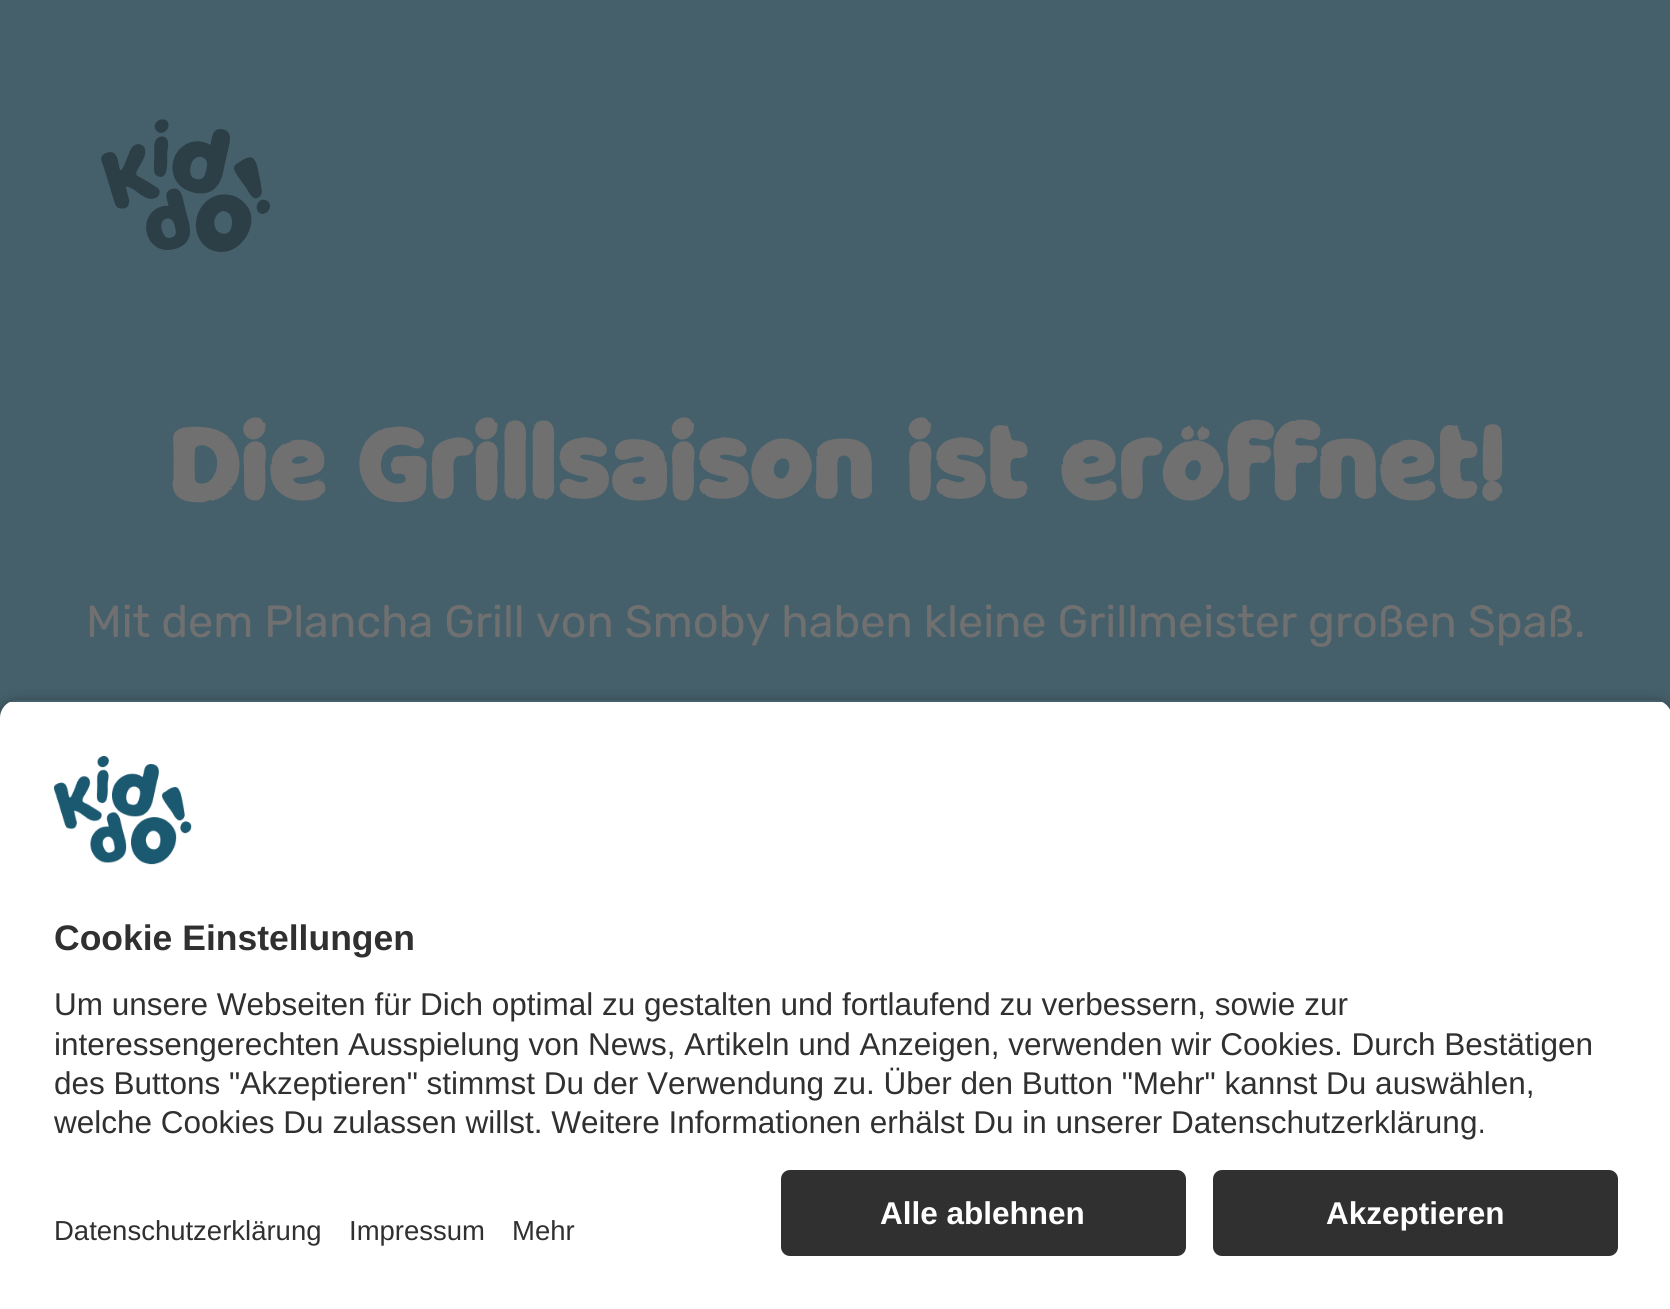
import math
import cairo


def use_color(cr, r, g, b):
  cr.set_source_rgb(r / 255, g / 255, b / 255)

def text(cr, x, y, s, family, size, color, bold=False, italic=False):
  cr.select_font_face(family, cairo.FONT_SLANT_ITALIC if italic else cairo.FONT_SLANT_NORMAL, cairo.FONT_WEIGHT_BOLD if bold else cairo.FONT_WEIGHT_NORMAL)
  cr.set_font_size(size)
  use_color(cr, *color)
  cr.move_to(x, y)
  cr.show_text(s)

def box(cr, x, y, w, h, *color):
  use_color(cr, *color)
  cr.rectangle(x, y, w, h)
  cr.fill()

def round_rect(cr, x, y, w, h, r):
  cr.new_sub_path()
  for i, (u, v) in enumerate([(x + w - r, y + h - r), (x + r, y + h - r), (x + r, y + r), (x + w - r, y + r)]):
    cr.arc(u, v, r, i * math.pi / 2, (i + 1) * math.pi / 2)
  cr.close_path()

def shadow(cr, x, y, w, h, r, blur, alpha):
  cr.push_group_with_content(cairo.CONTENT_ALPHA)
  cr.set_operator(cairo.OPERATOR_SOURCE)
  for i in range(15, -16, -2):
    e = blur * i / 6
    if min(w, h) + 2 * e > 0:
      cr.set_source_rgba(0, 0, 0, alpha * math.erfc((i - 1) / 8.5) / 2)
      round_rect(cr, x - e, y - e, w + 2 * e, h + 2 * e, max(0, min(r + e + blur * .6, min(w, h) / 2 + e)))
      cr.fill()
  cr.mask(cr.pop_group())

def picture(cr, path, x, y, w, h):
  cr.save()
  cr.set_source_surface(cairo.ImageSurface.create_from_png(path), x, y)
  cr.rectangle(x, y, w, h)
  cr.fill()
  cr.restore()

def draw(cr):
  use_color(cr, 69, 96, 107)
  cr.paint()
  picture(cr, "img_01.png", 101, 119, 169, 133)
  cr.save()
  cr.set_fill_rule(cairo.FILL_RULE_EVEN_ODD)
  cr.new_path()
  cr.move_to(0, 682)
  cr.line_to(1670, 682)
  cr.line_to(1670, 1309)
  cr.line_to(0, 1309)
  cr.close_path()
  cr.move_to(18, 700)
  cr.line_to(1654, 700)
  cr.curve_to(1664, 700, 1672, 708, 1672, 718)
  cr.line_to(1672, 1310)
  cr.line_to(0, 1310)
  cr.line_to(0, 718)
  cr.curve_to(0, 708, 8, 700, 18, 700)
  cr.close_path()
  cr.clip()
  use_color(cr, 0, 0, 0)
  shadow(cr, 0, 707, 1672, 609, 18, 8, 0.8)
  cr.restore()
  cr.save()
  cr.new_path()
  cr.move_to(18, 700)
  cr.line_to(1654, 700)
  cr.curve_to(1664, 700, 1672, 708, 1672, 718)
  cr.line_to(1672, 1152)
  cr.line_to(0, 1152)
  cr.line_to(0, 718)
  cr.curve_to(0, 708, 8, 700, 18, 700)
  cr.close_path()
  cr.clip()
  box(cr, 0, 702, 1670, 450, 255, 255, 255)
  cr.restore()
  picture(cr, "img_02.png", 54, 756, 138, 109)
  box(cr, 0, 1152, 1670, 157, 255, 255, 255)
  use_color(cr, 48, 48, 48)
  round_rect(cr, 781, 1170, 405, 86, 9)
  cr.fill()
  round_rect(cr, 1213, 1170, 405, 86, 9)
  cr.fill()
  text(cr, 168, 500, "Die Grillsaison ist eröffnet!", "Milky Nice", 101.25, (112, 112, 112), bold=True)
  text(cr, 86, 637, "Mit dem Plancha Grill von Smoby haben kleine Grillmeister großen Spaß.", "Rubik", 45, (112, 112, 112))
  text(cr, 54, 950, "Cookie Einstellungen", "Liberation Sans", 35.5, (48, 48, 48), bold=True)
  text(cr, 54, 1015, "Um unsere Webseiten für Dich optimal zu gestalten und fortlaufend zu verbessern, sowie zur", "Liberation Sans", 31.5, (48, 48, 48))
  text(cr, 54, 1055, "interessengerechten Ausspielung von News, Artikeln und Anzeigen, verwenden wir Cookies. Durch Bestätigen", "Liberation Sans", 31.5, (48, 48, 48))
  text(cr, 54, 1094, "des Buttons \"Akzeptieren\" stimmst Du der Verwendung zu. Über den Button \"Mehr\" kannst Du auswählen,", "Liberation Sans", 31.5, (48, 48, 48))
  text(cr, 54, 1133, "welche Cookies Du zulassen willst. Weitere Informationen erhälst Du in unserer Datenschutzerklärung.", "Liberation Sans", 31.5, (48, 48, 48))
  text(cr, 54, 1240, "Datenschutzerklärung", "Liberation Sans", 27.5, (48, 48, 48))
  text(cr, 349, 1240, "Impressum", "Liberation Sans", 27.5, (48, 48, 48))
  text(cr, 512, 1240, "Mehr", "Liberation Sans", 27.5, (48, 48, 48))
  text(cr, 880, 1224, "Alle ablehnen", "Liberation Sans", 31.5, (255, 255, 255), bold=True)
  text(cr, 1326, 1224, "Akzeptieren", "Liberation Sans", 31.5, (255, 255, 255), bold=True)


surface = cairo.ImageSurface(cairo.FORMAT_RGB24, 1670, 1309)
cr = cairo.Context(surface)
options = cairo.FontOptions()
options.set_hint_metrics(cairo.HINT_METRICS_OFF)
options.set_hint_style(cairo.HINT_STYLE_NONE)
cr.set_font_options(options)
cr.set_miter_limit(4)
draw(cr)
surface.write_to_png("out.png")
